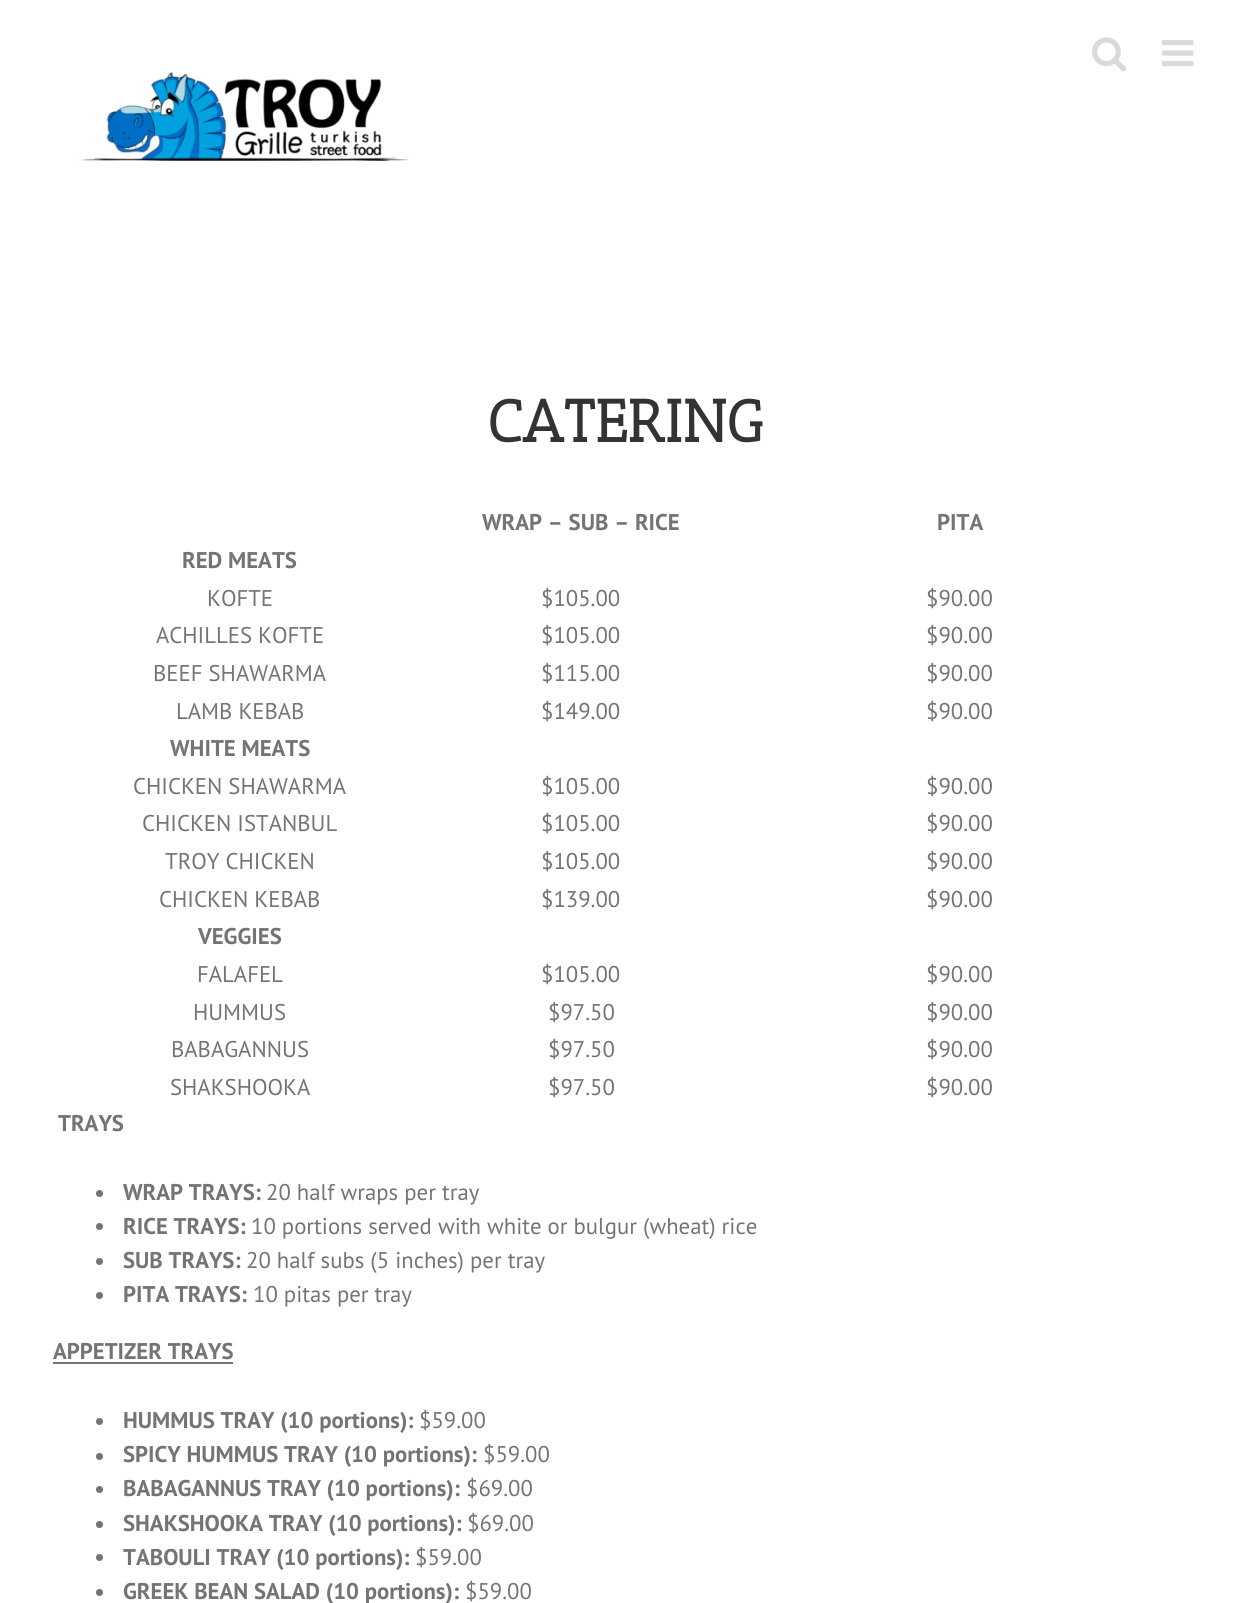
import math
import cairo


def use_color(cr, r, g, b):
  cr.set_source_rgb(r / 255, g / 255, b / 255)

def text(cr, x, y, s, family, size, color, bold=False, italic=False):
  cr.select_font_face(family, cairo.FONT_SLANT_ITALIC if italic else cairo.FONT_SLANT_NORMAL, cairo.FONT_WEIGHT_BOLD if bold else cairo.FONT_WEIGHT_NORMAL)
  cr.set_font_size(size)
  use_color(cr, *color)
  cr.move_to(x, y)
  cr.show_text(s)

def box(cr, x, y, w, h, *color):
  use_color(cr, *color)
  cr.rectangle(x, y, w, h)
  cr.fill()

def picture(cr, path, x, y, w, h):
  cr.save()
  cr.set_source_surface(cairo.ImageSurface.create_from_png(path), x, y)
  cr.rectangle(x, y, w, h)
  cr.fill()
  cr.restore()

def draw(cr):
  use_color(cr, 255, 255, 255)
  cr.paint()
  picture(cr, "img_01.png", 1092, 37, 34, 35)
  picture(cr, "img_02.png", 1162, 40, 32, 27)
  picture(cr, "img_03.png", 78, 72, 334, 90)
  use_color(cr, 116, 116, 116)
  cr.arc(99.5, 1193.5, 3.5, 0, 2 * math.pi)
  cr.fill()
  cr.arc(99.5, 1226.5, 3.5, 0, 2 * math.pi)
  cr.fill()
  cr.arc(99.5, 1261.5, 3.5, 0, 2 * math.pi)
  cr.fill()
  cr.arc(99.5, 1295.5, 3.5, 0, 2 * math.pi)
  cr.fill()
  box(cr, 53, 1362, 180, 2, 116, 116, 116)
  cr.arc(99.5, 1421.5, 3.5, 0, 2 * math.pi)
  cr.fill()
  cr.arc(99.5, 1456.5, 3.5, 0, 2 * math.pi)
  cr.fill()
  cr.arc(99.5, 1489.5, 3.5, 0, 2 * math.pi)
  cr.fill()
  cr.arc(99.5, 1524.5, 3.5, 0, 2 * math.pi)
  cr.fill()
  cr.arc(99.5, 1557.5, 3.5, 0, 2 * math.pi)
  cr.fill()
  cr.arc(99.5, 1592.5, 3.5, 0, 2 * math.pi)
  cr.fill()
  text(cr, 488, 442, "CATERING", "Antic Slab", 59.5, (51, 51, 51), bold=True)
  text(cr, 482, 530, "WRAP – SUB – RICE", "PT Sans", 22.75, (116, 116, 116), bold=True)
  text(cr, 937, 530, "PITA", "PT Sans", 22.75, (116, 116, 116), bold=True)
  text(cr, 182, 568, "RED MEATS", "PT Sans", 22.75, (116, 116, 116), bold=True)
  text(cr, 207, 606, "KOFTE", "PT Sans", 22.75, (116, 116, 116))
  text(cr, 541, 606, "$105.00", "PT Sans", 22.75, (116, 116, 116))
  text(cr, 926, 606, "$90.00", "PT Sans", 22.75, (116, 116, 116))
  text(cr, 156, 643, "ACHILLES KOFTE", "PT Sans", 22.75, (116, 116, 116))
  text(cr, 541, 643, "$105.00", "PT Sans", 22.75, (116, 116, 116))
  text(cr, 926, 643, "$90.00", "PT Sans", 22.75, (116, 116, 116))
  text(cr, 153, 681, "BEEF SHAWARMA", "PT Sans", 22.75, (116, 116, 116))
  text(cr, 541, 681, "$115.00", "PT Sans", 22.75, (116, 116, 116))
  text(cr, 926, 681, "$90.00", "PT Sans", 22.75, (116, 116, 116))
  text(cr, 176, 719, "LAMB KEBAB", "PT Sans", 22.75, (116, 116, 116))
  text(cr, 541, 719, "$149.00", "PT Sans", 22.75, (116, 116, 116))
  text(cr, 926, 719, "$90.00", "PT Sans", 22.75, (116, 116, 116))
  text(cr, 170, 756, "WHITE MEATS", "PT Sans", 22.75, (116, 116, 116), bold=True)
  text(cr, 133, 794, "CHICKEN SHAWARMA", "PT Sans", 22.75, (116, 116, 116))
  text(cr, 541, 794, "$105.00", "PT Sans", 22.75, (116, 116, 116))
  text(cr, 926, 794, "$90.00", "PT Sans", 22.75, (116, 116, 116))
  text(cr, 142, 831, "CHICKEN ISTANBUL", "PT Sans", 22.75, (116, 116, 116))
  text(cr, 541, 831, "$105.00", "PT Sans", 22.75, (116, 116, 116))
  text(cr, 926, 831, "$90.00", "PT Sans", 22.75, (116, 116, 116))
  text(cr, 165, 869, "TROY CHICKEN", "PT Sans", 22.75, (116, 116, 116))
  text(cr, 541, 869, "$105.00", "PT Sans", 22.75, (116, 116, 116))
  text(cr, 926, 869, "$90.00", "PT Sans", 22.75, (116, 116, 116))
  text(cr, 159, 907, "CHICKEN KEBAB", "PT Sans", 22.75, (116, 116, 116))
  text(cr, 541, 907, "$139.00", "PT Sans", 22.75, (116, 116, 116))
  text(cr, 926, 907, "$90.00", "PT Sans", 22.75, (116, 116, 116))
  text(cr, 198, 944, "VEGGIES", "PT Sans", 22.75, (116, 116, 116), bold=True)
  text(cr, 197, 982, "FALAFEL", "PT Sans", 22.75, (116, 116, 116))
  text(cr, 541, 982, "$105.00", "PT Sans", 22.75, (116, 116, 116))
  text(cr, 926, 982, "$90.00", "PT Sans", 22.75, (116, 116, 116))
  text(cr, 193, 1020, "HUMMUS", "PT Sans", 22.75, (116, 116, 116))
  text(cr, 548, 1020, "$97.50", "PT Sans", 22.75, (116, 116, 116))
  text(cr, 926, 1020, "$90.00", "PT Sans", 22.75, (116, 116, 116))
  text(cr, 171, 1057, "BABAGANNUS", "PT Sans", 22.75, (116, 116, 116))
  text(cr, 548, 1057, "$97.50", "PT Sans", 22.75, (116, 116, 116))
  text(cr, 926, 1057, "$90.00", "PT Sans", 22.75, (116, 116, 116))
  text(cr, 170, 1095, "SHAKSHOOKA", "PT Sans", 22.75, (116, 116, 116))
  text(cr, 548, 1095, "$97.50", "PT Sans", 22.75, (116, 116, 116))
  text(cr, 926, 1095, "$90.00", "PT Sans", 22.75, (116, 116, 116))
  text(cr, 58, 1131, "TRAYS", "PT Sans", 22.75, (116, 116, 116), bold=True)
  text(cr, 123, 1200, "WRAP TRAYS:", "PT Sans", 22.75, (116, 116, 116), bold=True)
  text(cr, 266, 1200, "20 half wraps per tray", "PT Sans", 22.75, (116, 116, 116))
  text(cr, 123, 1234, "RICE TRAYS:", "PT Sans", 22.75, (116, 116, 116), bold=True)
  text(cr, 251, 1234, "10 portions served with white or bulgur (wheat) rice", "PT Sans", 22.75, (116, 116, 116))
  text(cr, 123, 1268, "SUB TRAYS:", "PT Sans", 22.75, (116, 116, 116), bold=True)
  text(cr, 246, 1268, "20 half subs (5 inches) per tray", "PT Sans", 22.75, (116, 116, 116))
  text(cr, 123, 1302, "PITA TRAYS:", "PT Sans", 22.75, (116, 116, 116), bold=True)
  text(cr, 253, 1302, "10 pitas per tray", "PT Sans", 22.75, (116, 116, 116))
  text(cr, 53, 1359, "APPETIZER TRAYS", "PT Sans", 22.75, (116, 116, 116), bold=True)
  text(cr, 123, 1428, "HUMMUS TRAY (10 portions):", "PT Sans", 22.75, (116, 116, 116), bold=True)
  text(cr, 419, 1428, "$59.00", "PT Sans", 22.75, (116, 116, 116))
  text(cr, 123, 1462, "SPICY HUMMUS TRAY (10 portions):", "PT Sans", 22.75, (116, 116, 116), bold=True)
  text(cr, 483, 1462, "$59.00", "PT Sans", 22.75, (116, 116, 116))
  text(cr, 123, 1496, "BABAGANNUS TRAY (10 portions):", "PT Sans", 22.75, (116, 116, 116), bold=True)
  text(cr, 466, 1496, "$69.00", "PT Sans", 22.75, (116, 116, 116))
  text(cr, 123, 1531, "SHAKSHOOKA TRAY (10 portions):", "PT Sans", 22.75, (116, 116, 116), bold=True)
  text(cr, 467, 1531, "$69.00", "PT Sans", 22.75, (116, 116, 116))
  text(cr, 123, 1565, "TABOULI TRAY (10 portions):", "PT Sans", 22.75, (116, 116, 116), bold=True)
  text(cr, 415, 1565, "$59.00", "PT Sans", 22.75, (116, 116, 116))
  text(cr, 123, 1599, "GREEK BEAN SALAD (10 portions):", "PT Sans", 22.75, (116, 116, 116), bold=True)
  text(cr, 465, 1599, "$59.00", "PT Sans", 22.75, (116, 116, 116))


surface = cairo.ImageSurface(cairo.FORMAT_RGB24, 1251, 1603)
cr = cairo.Context(surface)
options = cairo.FontOptions()
options.set_hint_metrics(cairo.HINT_METRICS_OFF)
options.set_hint_style(cairo.HINT_STYLE_NONE)
cr.set_font_options(options)
cr.set_miter_limit(4)
draw(cr)
surface.write_to_png("out.png")
